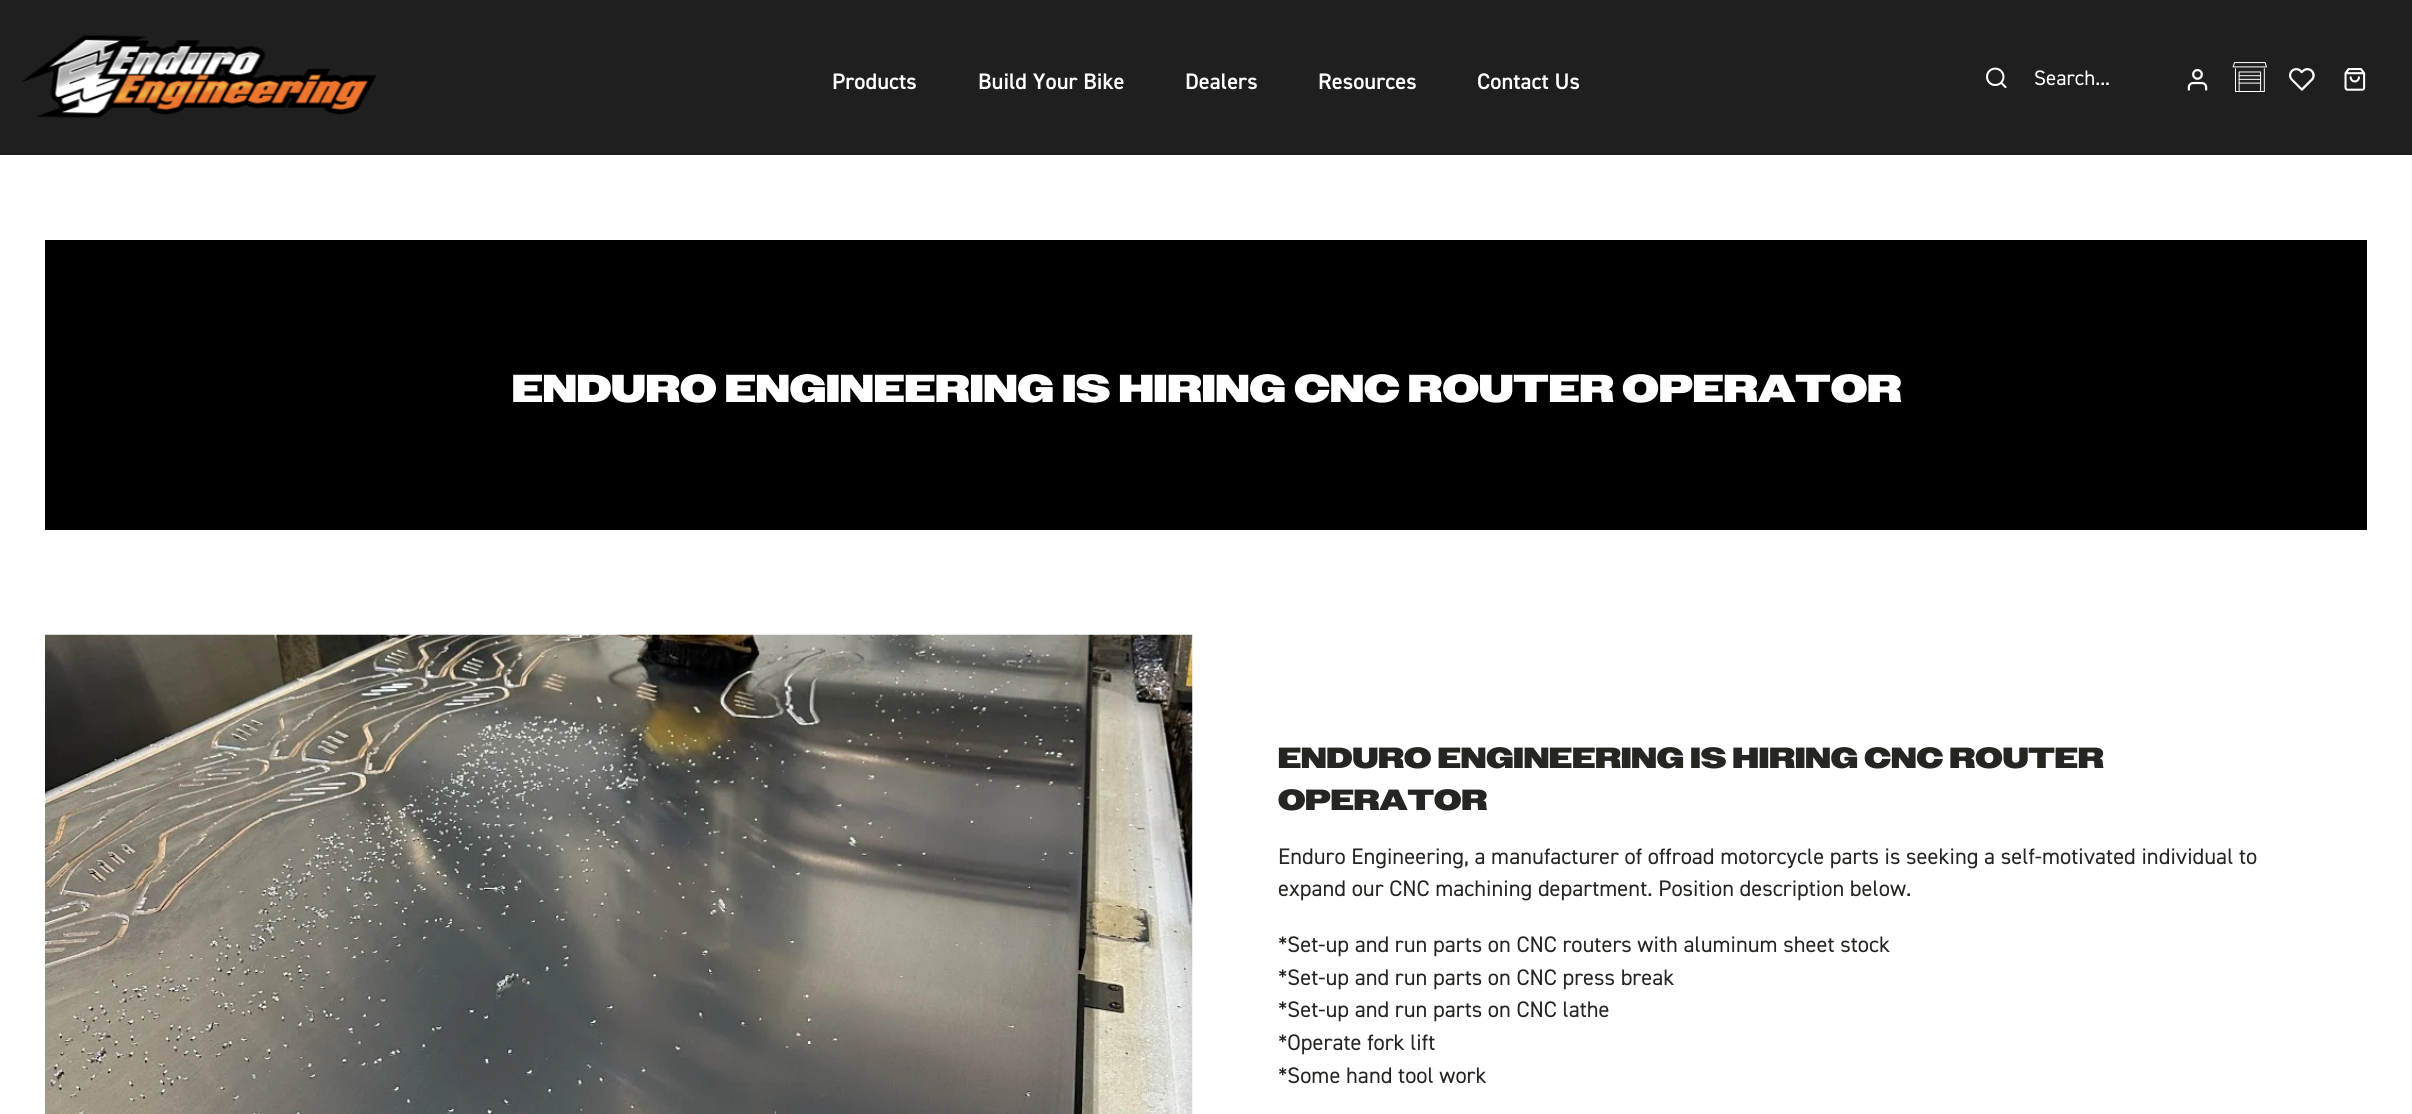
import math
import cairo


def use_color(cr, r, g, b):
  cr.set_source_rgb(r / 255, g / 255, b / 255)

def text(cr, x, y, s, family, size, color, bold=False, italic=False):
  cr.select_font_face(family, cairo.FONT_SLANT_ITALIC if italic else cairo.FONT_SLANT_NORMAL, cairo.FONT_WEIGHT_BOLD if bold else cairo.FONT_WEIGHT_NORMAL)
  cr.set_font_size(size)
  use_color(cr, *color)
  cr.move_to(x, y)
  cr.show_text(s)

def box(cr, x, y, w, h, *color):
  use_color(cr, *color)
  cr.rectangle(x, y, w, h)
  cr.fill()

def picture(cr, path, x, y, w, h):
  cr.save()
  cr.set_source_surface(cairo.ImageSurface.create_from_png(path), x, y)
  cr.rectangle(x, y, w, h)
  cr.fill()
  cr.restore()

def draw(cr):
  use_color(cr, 255, 255, 255)
  cr.paint()
  box(cr, 0, 0, 2412, 155, 31, 31, 31)
  picture(cr, "img_01.png", 21, 35, 356, 83)
  picture(cr, "img_02.png", 1986, 67, 21, 22)
  picture(cr, "img_03.png", 2187, 69, 21, 22)
  picture(cr, "img_04.png", 2232, 62, 35, 30)
  picture(cr, "img_05.png", 2289, 68, 26, 23)
  picture(cr, "img_06.png", 2344, 68, 22, 23)
  box(cr, 45, 240, 2322, 290, 0, 0, 0)
  picture(cr, "img_07.png", 45, 634, 1148, 480)
  text(cr, 832, 89, "Products", "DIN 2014 SemiBold", 22.5, (255, 255, 255))
  text(cr, 978, 89, "Build Your Bike", "DIN 2014 SemiBold", 22.5, (255, 255, 255))
  text(cr, 1185, 89, "Dealers", "DIN 2014 SemiBold", 22.5, (255, 255, 255))
  text(cr, 1318, 89, "Resources", "DIN 2014 SemiBold", 22.5, (255, 255, 255))
  text(cr, 1477, 89, "Contact Us", "DIN 2014 SemiBold", 22.5, (255, 255, 255))
  text(cr, 2034, 85, "Search...", "DIN 2014", 21, (255, 255, 255))
  text(cr, 512, 402, "ENDURO ENGINEERING IS HIRING CNC ROUTER OPERATOR", "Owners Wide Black", 38.9, (255, 255, 255))
  text(cr, 1278, 768, "ENDURO ENGINEERING IS HIRING CNC ROUTER", "Owners Wide Black", 29.15, (37, 37, 34))
  text(cr, 1278, 810, "OPERATOR", "Owners Wide Black", 29.15, (37, 37, 34))
  text(cr, 1278, 864, "Enduro Engineering, a manufacturer of offroad motorcycle parts is seeking a self-motivated individual to", "DIN 2014", 22.5, (37, 37, 34))
  text(cr, 1278, 896, "expand our CNC machining department. Position description below.", "DIN 2014", 22.5, (37, 37, 34))
  text(cr, 1278, 952, "*Set-up and run parts on CNC routers with aluminum sheet stock", "DIN 2014", 22.5, (37, 37, 34))
  text(cr, 1278, 985, "*Set-up and run parts on CNC press break", "DIN 2014", 22.5, (37, 37, 34))
  text(cr, 1278, 1017, "*Set-up and run parts on CNC lathe", "DIN 2014", 22.5, (37, 37, 34))
  text(cr, 1278, 1050, "*Operate fork lift", "DIN 2014", 22.5, (37, 37, 34))
  text(cr, 1278, 1083, "*Some hand tool work", "DIN 2014", 22.5, (37, 37, 34))


surface = cairo.ImageSurface(cairo.FORMAT_RGB24, 2412, 1114)
cr = cairo.Context(surface)
options = cairo.FontOptions()
options.set_hint_metrics(cairo.HINT_METRICS_OFF)
options.set_hint_style(cairo.HINT_STYLE_NONE)
cr.set_font_options(options)
cr.set_miter_limit(4)
draw(cr)
surface.write_to_png("out.png")
